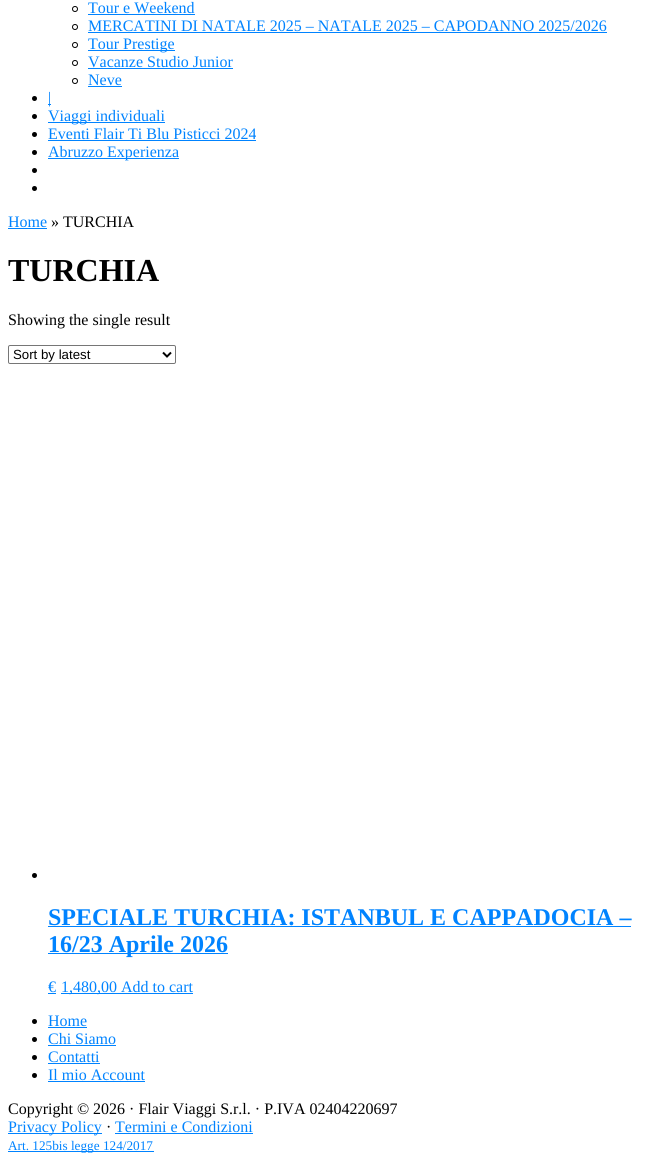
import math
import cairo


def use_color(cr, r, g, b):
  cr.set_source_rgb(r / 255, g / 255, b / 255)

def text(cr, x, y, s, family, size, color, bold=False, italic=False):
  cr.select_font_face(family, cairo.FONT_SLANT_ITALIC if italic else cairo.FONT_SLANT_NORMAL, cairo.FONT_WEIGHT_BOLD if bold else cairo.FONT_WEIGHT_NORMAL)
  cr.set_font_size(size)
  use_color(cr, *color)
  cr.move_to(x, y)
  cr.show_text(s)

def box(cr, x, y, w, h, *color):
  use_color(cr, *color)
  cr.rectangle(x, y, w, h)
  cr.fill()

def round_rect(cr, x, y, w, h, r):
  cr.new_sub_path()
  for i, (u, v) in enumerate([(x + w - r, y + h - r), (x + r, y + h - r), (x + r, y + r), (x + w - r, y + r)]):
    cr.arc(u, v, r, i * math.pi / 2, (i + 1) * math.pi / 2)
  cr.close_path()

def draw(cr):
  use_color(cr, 255, 255, 255)
  cr.paint()
  cr.arc(75, 9, 2.5, 0, 2 * math.pi)
  use_color(cr, 0, 0, 0)
  cr.set_line_width(1)
  cr.stroke()
  box(cr, 88, 14, 107, 1, 0, 131, 255)
  cr.arc(75, 27, 2.5, 0, 2 * math.pi)
  use_color(cr, 0, 0, 0)
  cr.stroke()
  box(cr, 88, 32, 519, 1, 0, 131, 255)
  cr.arc(75, 45, 2.5, 0, 2 * math.pi)
  use_color(cr, 0, 0, 0)
  cr.stroke()
  box(cr, 88, 50, 87, 1, 0, 131, 255)
  cr.arc(75, 63, 2.5, 0, 2 * math.pi)
  use_color(cr, 0, 0, 0)
  cr.stroke()
  box(cr, 88, 68, 145, 1, 0, 131, 255)
  cr.arc(75, 81, 2.5, 0, 2 * math.pi)
  use_color(cr, 0, 0, 0)
  cr.stroke()
  box(cr, 88, 86, 34, 1, 0, 131, 255)
  use_color(cr, 0, 0, 0)
  cr.arc(34.5, 98.5, 2.5, 0, 2 * math.pi)
  cr.fill()
  box(cr, 48, 104, 3, 1, 0, 131, 255)
  use_color(cr, 0, 0, 0)
  cr.arc(34.5, 116.5, 2.5, 0, 2 * math.pi)
  cr.fill()
  box(cr, 48, 122, 117, 1, 0, 131, 255)
  use_color(cr, 0, 0, 0)
  cr.arc(34.5, 134.5, 2.5, 0, 2 * math.pi)
  cr.fill()
  box(cr, 48, 140, 208, 1, 0, 131, 255)
  use_color(cr, 0, 0, 0)
  cr.arc(34.5, 152.5, 2.5, 0, 2 * math.pi)
  cr.fill()
  box(cr, 48, 158, 131, 1, 0, 131, 255)
  use_color(cr, 0, 0, 0)
  cr.arc(34.5, 170.5, 2.5, 0, 2 * math.pi)
  cr.fill()
  cr.arc(34.5, 188.5, 2.5, 0, 2 * math.pi)
  cr.fill()
  box(cr, 8, 228, 39, 1, 0, 131, 255)
  round_rect(cr, 8.5, 345.5, 167, 18, 1.5)
  use_color(cr, 118, 118, 118)
  cr.stroke()
  cr.new_path()
  cr.move_to(163, 352.5)
  cr.line_to(167, 356.5)
  cr.line_to(171, 352.5)
  use_color(cr, 0, 0, 0)
  cr.set_line_width(2)
  cr.stroke()
  cr.arc(34.5, 875.5, 2.5, 0, 2 * math.pi)
  cr.fill()
  box(cr, 48, 926, 583, 1, 0, 131, 255)
  box(cr, 48, 953, 180, 1, 0, 131, 255)
  box(cr, 48, 993, 8, 1, 0, 131, 255)
  box(cr, 61, 993, 132, 1, 0, 131, 255)
  use_color(cr, 0, 0, 0)
  cr.arc(34.5, 1021.5, 2.5, 0, 2 * math.pi)
  cr.fill()
  box(cr, 48, 1027, 39, 1, 0, 131, 255)
  use_color(cr, 0, 0, 0)
  cr.arc(34.5, 1039.5, 2.5, 0, 2 * math.pi)
  cr.fill()
  box(cr, 48, 1045, 68, 1, 0, 131, 255)
  use_color(cr, 0, 0, 0)
  cr.arc(34.5, 1057.5, 2.5, 0, 2 * math.pi)
  cr.fill()
  box(cr, 48, 1063, 52, 1, 0, 131, 255)
  use_color(cr, 0, 0, 0)
  cr.arc(34.5, 1075.5, 2.5, 0, 2 * math.pi)
  cr.fill()
  box(cr, 48, 1081, 97, 1, 0, 131, 255)
  box(cr, 8, 1133, 94, 1, 0, 131, 255)
  box(cr, 115, 1133, 138, 1, 0, 131, 255)
  box(cr, 8, 1151, 146, 1, 0, 131, 255)
  text(cr, 88, 13, "Tour e Weekend", "Liberation Serif", 16, (0, 131, 255))
  text(cr, 88, 31, "MERCATINI DI NATALE 2025 – NATALE 2025 – CAPODANNO 2025/2026", "Liberation Serif", 16, (0, 131, 255))
  text(cr, 88, 49, "Tour Prestige", "Liberation Serif", 16, (0, 131, 255))
  text(cr, 88, 67, "Vacanze Studio Junior", "Liberation Serif", 16, (0, 131, 255))
  text(cr, 88, 85, "Neve", "Liberation Serif", 16, (0, 131, 255))
  text(cr, 48, 103, "|", "Liberation Serif", 16, (0, 131, 255))
  text(cr, 48, 121, "Viaggi individuali", "Liberation Serif", 16, (0, 131, 255))
  text(cr, 48, 139, "Eventi Flair Ti Blu Pisticci 2024", "Liberation Serif", 16, (0, 131, 255))
  text(cr, 48, 157, "Abruzzo Experienza", "Liberation Serif", 16, (0, 131, 255))
  text(cr, 8, 227, "Home", "Liberation Serif", 16, (0, 131, 255))
  text(cr, 51, 227, "» TURCHIA", "Liberation Serif", 16, (0, 0, 0))
  text(cr, 8, 281, "TURCHIA", "Liberation Serif", 32, (0, 0, 0), bold=True)
  text(cr, 8, 325, "Showing the single result", "Liberation Serif", 16, (0, 0, 0))
  text(cr, 13, 359, "Sort by latest", "Liberation Sans", 13.25, (0, 0, 0))
  text(cr, 48, 925, "SPECIALE TURCHIA: ISTANBUL E CAPPADOCIA –", "Liberation Serif", 24, (0, 131, 255), bold=True)
  text(cr, 48, 952, "16/23 Aprile 2026", "Liberation Serif", 24, (0, 131, 255), bold=True)
  text(cr, 48, 992, "€", "Liberation Serif", 16, (0, 131, 255))
  text(cr, 61, 992, "1,480,00 Add to cart", "Liberation Serif", 16, (0, 131, 255))
  text(cr, 48, 1026, "Home", "Liberation Serif", 16, (0, 131, 255))
  text(cr, 48, 1044, "Chi Siamo", "Liberation Serif", 16, (0, 131, 255))
  text(cr, 48, 1062, "Contatti", "Liberation Serif", 16, (0, 131, 255))
  text(cr, 48, 1080, "Il mio Account", "Liberation Serif", 16, (0, 131, 255))
  text(cr, 8, 1114, "Copyright © 2026 · Flair Viaggi S.r.l. · P.IVA 02404220697", "Liberation Serif", 16, (0, 0, 0))
  text(cr, 8, 1132, "Privacy Policy", "Liberation Serif", 16, (0, 131, 255))
  text(cr, 106, 1132, "·", "Liberation Serif", 16, (0, 0, 0))
  text(cr, 115, 1132, "Termini e Condizioni", "Liberation Serif", 16, (0, 131, 255))
  text(cr, 8, 1150, "Art. 125bis legge 124/2017", "Liberation Serif", 13.25, (0, 131, 255))


surface = cairo.ImageSurface(cairo.FORMAT_RGB24, 654, 1170)
cr = cairo.Context(surface)
options = cairo.FontOptions()
options.set_hint_metrics(cairo.HINT_METRICS_OFF)
options.set_hint_style(cairo.HINT_STYLE_NONE)
cr.set_font_options(options)
cr.set_miter_limit(4)
draw(cr)
surface.write_to_png("out.png")
